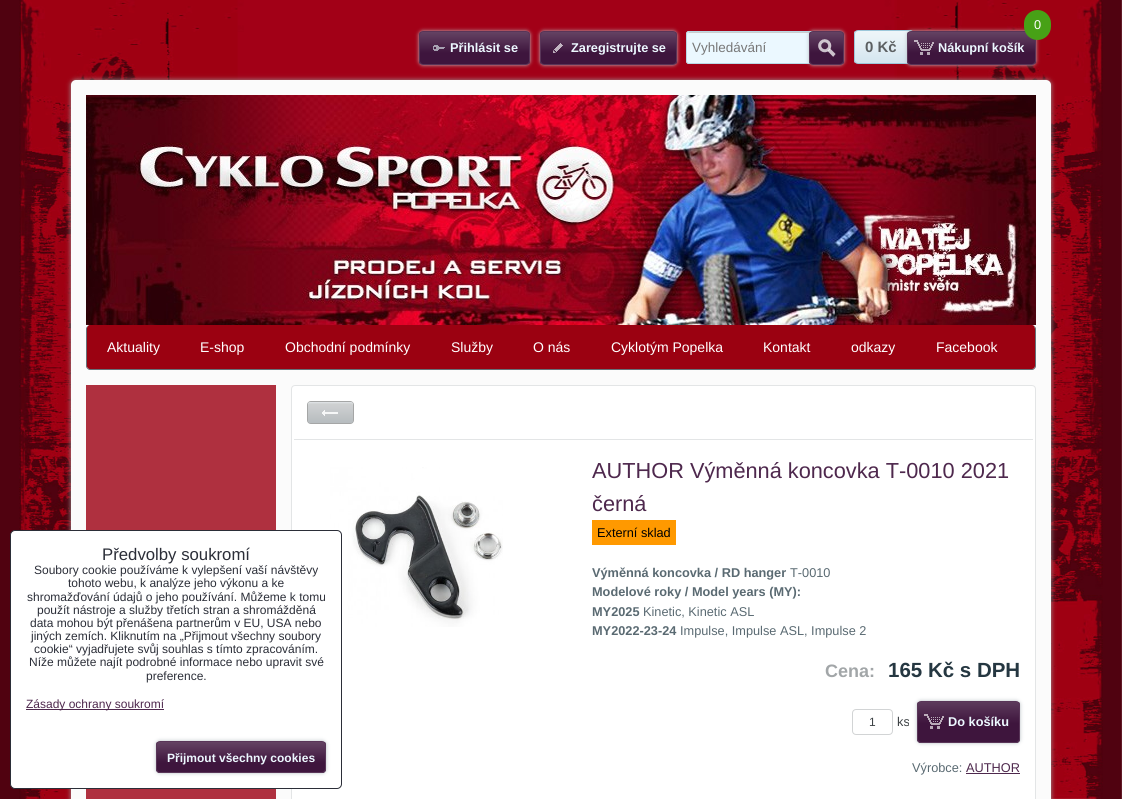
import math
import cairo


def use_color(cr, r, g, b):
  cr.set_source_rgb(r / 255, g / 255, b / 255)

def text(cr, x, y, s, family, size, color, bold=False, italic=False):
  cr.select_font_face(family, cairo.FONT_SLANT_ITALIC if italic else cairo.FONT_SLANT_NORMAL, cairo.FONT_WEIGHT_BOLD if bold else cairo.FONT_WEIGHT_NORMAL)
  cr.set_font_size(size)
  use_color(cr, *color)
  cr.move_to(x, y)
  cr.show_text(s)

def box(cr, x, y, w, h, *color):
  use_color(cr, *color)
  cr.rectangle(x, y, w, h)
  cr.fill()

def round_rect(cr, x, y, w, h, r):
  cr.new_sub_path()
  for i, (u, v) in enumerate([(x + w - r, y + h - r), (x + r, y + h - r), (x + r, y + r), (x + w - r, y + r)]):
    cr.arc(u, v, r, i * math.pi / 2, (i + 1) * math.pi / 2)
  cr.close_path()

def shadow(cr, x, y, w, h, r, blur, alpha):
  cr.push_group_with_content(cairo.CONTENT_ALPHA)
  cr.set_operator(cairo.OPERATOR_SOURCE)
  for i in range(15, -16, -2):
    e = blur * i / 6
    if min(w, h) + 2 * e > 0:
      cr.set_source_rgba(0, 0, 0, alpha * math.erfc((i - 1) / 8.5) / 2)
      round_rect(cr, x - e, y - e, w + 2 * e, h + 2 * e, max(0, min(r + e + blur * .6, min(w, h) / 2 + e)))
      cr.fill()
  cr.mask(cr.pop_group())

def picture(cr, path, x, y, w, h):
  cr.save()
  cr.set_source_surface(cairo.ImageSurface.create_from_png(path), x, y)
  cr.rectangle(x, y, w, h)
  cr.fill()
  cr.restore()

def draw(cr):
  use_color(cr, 255, 255, 255)
  cr.paint()
  picture(cr, "img_01.png", 0, 0, 1122, 799)
  use_color(cr, 182, 191, 195)
  shadow(cr, 419, 31, 111, 34, 4, 2, 1)
  picture(cr, "img_02.png", 419, 32, 111, 32)
  round_rect(cr, 419.5, 31.5, 110, 33, 3.5)
  use_color(cr, 89, 53, 88)
  cr.set_line_width(1)
  cr.stroke()
  picture(cr, "img_03.png", 433, 45, 12, 6)
  use_color(cr, 182, 191, 195)
  shadow(cr, 540, 31, 137, 34, 4, 2, 1)
  picture(cr, "img_04.png", 540, 32, 137, 32)
  round_rect(cr, 540.5, 31.5, 136, 33, 3.5)
  use_color(cr, 89, 53, 88)
  cr.stroke()
  picture(cr, "img_05.png", 553, 43, 10, 10)
  use_color(cr, 235, 248, 255)
  round_rect(cr, 686, 31, 128, 33, 3)
  cr.fill()
  use_color(cr, 204, 204, 204)
  cr.new_path()
  cr.move_to(689, 33)
  cr.line_to(811, 33)
  cr.line_to(813, 34)
  cr.line_to(813, 35)
  cr.curve_to(813, 34, 813, 33, 812, 32)
  cr.line_to(689, 32)
  cr.line_to(688, 33)
  cr.line_to(687, 35)
  cr.curve_to(687, 34, 688, 33, 689, 33)
  cr.close_path()
  cr.fill()
  round_rect(cr, 686.5, 31.5, 127, 32, 2.5)
  use_color(cr, 185, 217, 230)
  cr.stroke()
  use_color(cr, 182, 191, 195)
  shadow(cr, 809, 31, 35, 34, 4, 2, 1)
  picture(cr, "img_06.png", 809, 32, 35, 32)
  round_rect(cr, 809.5, 31.5, 34, 33, 3.5)
  use_color(cr, 89, 53, 88)
  cr.stroke()
  picture(cr, "img_07.png", 818, 39, 18, 18)
  picture(cr, "img_08.png", 854, 31, 57, 32)
  round_rect(cr, 854.5, 30.5, 59, 33, 3.5)
  use_color(cr, 156, 199, 218)
  cr.stroke()
  use_color(cr, 182, 191, 195)
  shadow(cr, 907, 31, 129, 34, 4, 2, 1)
  picture(cr, "img_09.png", 907, 32, 129, 32)
  round_rect(cr, 907.5, 31.5, 128, 33, 3.5)
  use_color(cr, 89, 53, 88)
  cr.stroke()
  use_color(cr, 71, 161, 22)
  round_rect(cr, 1024, 10, 27, 30, 13.5)
  cr.fill()
  picture(cr, "img_10.png", 914, 40, 20, 15)
  use_color(cr, 153, 153, 153)
  shadow(cr, 71, 80, 980, 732, 5, 2.5, 1)
  use_color(cr, 251, 251, 251)
  round_rect(cr, 71, 80, 980, 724, 5)
  cr.fill()
  picture(cr, "img_11.png", 86, 95, 950, 230)
  use_color(cr, 155, 1, 17)
  cr.new_path()
  cr.move_to(90, 325)
  cr.line_to(1032, 325)
  cr.curve_to(1034, 325, 1035, 327, 1035, 329)
  cr.line_to(1035, 366)
  cr.curve_to(1035, 368, 1034, 369, 1032, 369)
  cr.line_to(90, 369)
  cr.curve_to(88, 369, 87, 368, 87, 366)
  cr.line_to(87, 329)
  cr.curve_to(87, 327, 88, 325, 90, 325)
  cr.close_path()
  cr.fill()
  use_color(cr, 101, 113, 120)
  cr.set_fill_rule(cairo.FILL_RULE_EVEN_ODD)
  cr.new_path()
  cr.move_to(90, 325)
  cr.line_to(1032, 325)
  cr.curve_to(1034, 325, 1036, 327, 1036, 329)
  cr.line_to(1036, 366)
  cr.curve_to(1036, 368, 1034, 370, 1032, 370)
  cr.line_to(90, 370)
  cr.curve_to(88, 370, 86, 368, 86, 366)
  cr.line_to(86, 329)
  cr.curve_to(86, 327, 88, 325, 90, 325)
  cr.close_path()
  cr.move_to(90, 325)
  cr.line_to(1032, 325)
  cr.curve_to(1034, 325, 1035, 327, 1035, 329)
  cr.line_to(1035, 366)
  cr.curve_to(1035, 368, 1034, 369, 1032, 369)
  cr.line_to(90, 369)
  cr.curve_to(88, 369, 87, 368, 87, 366)
  cr.line_to(87, 329)
  cr.curve_to(87, 327, 88, 325, 90, 325)
  cr.close_path()
  cr.fill()
  use_color(cr, 155, 1, 17)
  cr.new_path()
  cr.move_to(91, 325)
  cr.line_to(180, 325)
  cr.line_to(180, 369)
  cr.line_to(91, 369)
  cr.curve_to(89, 369, 87, 367, 87, 365)
  cr.line_to(87, 329)
  cr.curve_to(87, 327, 89, 325, 91, 325)
  cr.close_path()
  cr.fill()
  box(cr, 86, 385, 190, 414, 175, 48, 63)
  use_color(cr, 255, 255, 255)
  round_rect(cr, 291.5, 385.5, 744, 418, 3.5)
  cr.fill_preserve()
  use_color(cr, 227, 229, 230)
  cr.stroke()
  box(cr, 294, 439, 739, 1, 227, 229, 230)
  picture(cr, "img_12.png", 307, 401, 47, 23)
  picture(cr, "img_13.png", 322, 410, 16, 6)
  picture(cr, "img_14.png", 330, 467, 173, 160)
  box(cr, 592, 520, 84, 25, 255, 153, 0)
  round_rect(cr, 852.5, 709.5, 40, 25, 3.5)
  use_color(cr, 210, 212, 213)
  cr.stroke()
  use_color(cr, 182, 191, 195)
  shadow(cr, 917, 701, 103, 42, 4, 2, 1)
  picture(cr, "img_15.png", 917, 702, 103, 41)
  round_rect(cr, 917.5, 701.5, 102, 41, 3.5)
  use_color(cr, 89, 53, 88)
  cr.stroke()
  picture(cr, "img_16.png", 924, 714, 20, 15)
  box(cr, 966, 773, 54, 1, 78, 40, 77)
  use_color(cr, 255, 255, 255)
  round_rect(cr, 10.5, 530.5, 331, 258, 4.5)
  cr.fill_preserve()
  use_color(cr, 43, 46, 56)
  cr.stroke()
  box(cr, 26, 709, 138, 1, 78, 40, 77)
  use_color(cr, 182, 191, 195)
  shadow(cr, 156, 741, 170, 32, 4, 2, 1)
  picture(cr, "img_17.png", 156, 742, 170, 31)
  round_rect(cr, 156.5, 741.5, 169, 31, 3.5)
  use_color(cr, 89, 53, 88)
  cr.stroke()
  text(cr, 450, 52, "Přihlásit se", "Liberation Sans", 12.75, (236, 248, 255), bold=True)
  text(cr, 571, 52, "Zaregistrujte se", "Liberation Sans", 12.75, (236, 248, 255), bold=True)
  text(cr, 692, 52, "Vyhledávání", "Liberation Sans", 13.5, (119, 119, 119))
  text(cr, 1034, 29, "0", "Liberation Sans", 12.75, (255, 255, 255))
  text(cr, 865, 52, "0 Kč", "Liberation Sans", 15, (92, 96, 98), bold=True)
  text(cr, 938, 52, "Nákupní košík", "Liberation Sans", 12.75, (236, 248, 255), bold=True)
  text(cr, 107, 352, "Aktuality", "Liberation Sans", 14, (255, 255, 255))
  text(cr, 200, 352, "E-shop", "Liberation Sans", 14, (255, 255, 255))
  text(cr, 285, 352, "Obchodní podmínky", "Liberation Sans", 14, (255, 255, 255))
  text(cr, 451, 352, "Služby", "Liberation Sans", 14, (255, 255, 255))
  text(cr, 533, 352, "O nás", "Liberation Sans", 14, (255, 255, 255))
  text(cr, 611, 352, "Cyklotým Popelka", "Liberation Sans", 14, (255, 255, 255))
  text(cr, 763, 352, "Kontakt", "Liberation Sans", 14, (255, 255, 255))
  text(cr, 851, 352, "odkazy", "Liberation Sans", 14, (255, 255, 255))
  text(cr, 936, 352, "Facebook", "Liberation Sans", 14, (255, 255, 255))
  text(cr, 592, 478, "AUTHOR Výměnná koncovka T-0010 2021", "Liberation Sans", 21.75, (78, 40, 77))
  text(cr, 592, 511, "černá", "Liberation Sans", 21.75, (78, 40, 77))
  text(cr, 597, 537, "Externí sklad", "Liberation Sans", 12.75, (0, 0, 0))
  text(cr, 592, 577, "Výměnná koncovka / RD hanger", "Liberation Sans", 12.75, (90, 106, 114), bold=True)
  text(cr, 790, 577, "T-0010", "Liberation Sans", 12.75, (90, 106, 114))
  text(cr, 592, 596, "Modelové roky / Model years (MY):", "Liberation Sans", 12.75, (90, 106, 114), bold=True)
  text(cr, 592, 616, "MY2025", "Liberation Sans", 12.75, (90, 106, 114), bold=True)
  text(cr, 643, 616, "Kinetic, Kinetic ASL", "Liberation Sans", 12.75, (90, 106, 114))
  text(cr, 592, 635, "MY2022-23-24", "Liberation Sans", 12.75, (90, 106, 114), bold=True)
  text(cr, 680, 635, "Impulse, Impulse ASL, Impulse 2", "Liberation Sans", 12.75, (90, 106, 114))
  text(cr, 825, 677, "Cena:", "Liberation Sans", 18, (162, 166, 168), bold=True)
  text(cr, 888, 677, "165 Kč s DPH", "Liberation Sans", 20.5, (37, 55, 65), bold=True)
  text(cr, 869, 726, "1", "Liberation Sans", 12, (61, 66, 69))
  text(cr, 897, 726, "ks", "Liberation Sans", 12.75, (61, 66, 69))
  text(cr, 948, 726, "Do košíku", "Liberation Sans", 12.75, (236, 248, 255), bold=True)
  text(cr, 912, 772, "Výrobce:", "Liberation Sans", 12.75, (90, 106, 114))
  text(cr, 966, 772, "AUTHOR", "Liberation Sans", 12.75, (78, 40, 77))
  text(cr, 102, 560, "Předvolby soukromí", "Liberation Sans", 16.75, (43, 46, 56))
  text(cr, 34, 574, "Soubory cookie používáme k vylepšení vaší návštěvy", "Liberation Sans", 12, (43, 46, 56))
  text(cr, 68, 587, "tohoto webu, k analýze jeho výkonu a ke", "Liberation Sans", 12, (43, 46, 56))
  text(cr, 27, 601, "shromažďování údajů o jeho používání. Můžeme k tomu", "Liberation Sans", 12, (43, 46, 56))
  text(cr, 37, 614, "použít nástroje a služby třetích stran a shromážděná", "Liberation Sans", 12, (43, 46, 56))
  text(cr, 30, 627, "data mohou být přenášena partnerům v EU, USA nebo", "Liberation Sans", 12, (43, 46, 56))
  text(cr, 31, 640, "jiných zemích. Kliknutím na „Přijmout všechny soubory", "Liberation Sans", 12, (43, 46, 56))
  text(cr, 34, 653, "cookie“ vyjadřujete svůj souhlas s tímto zpracováním.", "Liberation Sans", 12, (43, 46, 56))
  text(cr, 29, 666, "Níže můžete najít podrobné informace nebo upravit své", "Liberation Sans", 12, (43, 46, 56))
  text(cr, 146, 680, "preference.", "Liberation Sans", 12, (43, 46, 56))
  text(cr, 26, 708, "Zásady ochrany soukromí", "Liberation Sans", 12, (78, 40, 77))
  text(cr, 167, 762, "Přijmout všechny cookies", "Liberation Sans", 12, (236, 248, 255), bold=True)


surface = cairo.ImageSurface(cairo.FORMAT_RGB24, 1122, 799)
cr = cairo.Context(surface)
options = cairo.FontOptions()
options.set_hint_metrics(cairo.HINT_METRICS_OFF)
options.set_hint_style(cairo.HINT_STYLE_NONE)
cr.set_font_options(options)
cr.set_miter_limit(4)
draw(cr)
surface.write_to_png("out.png")
